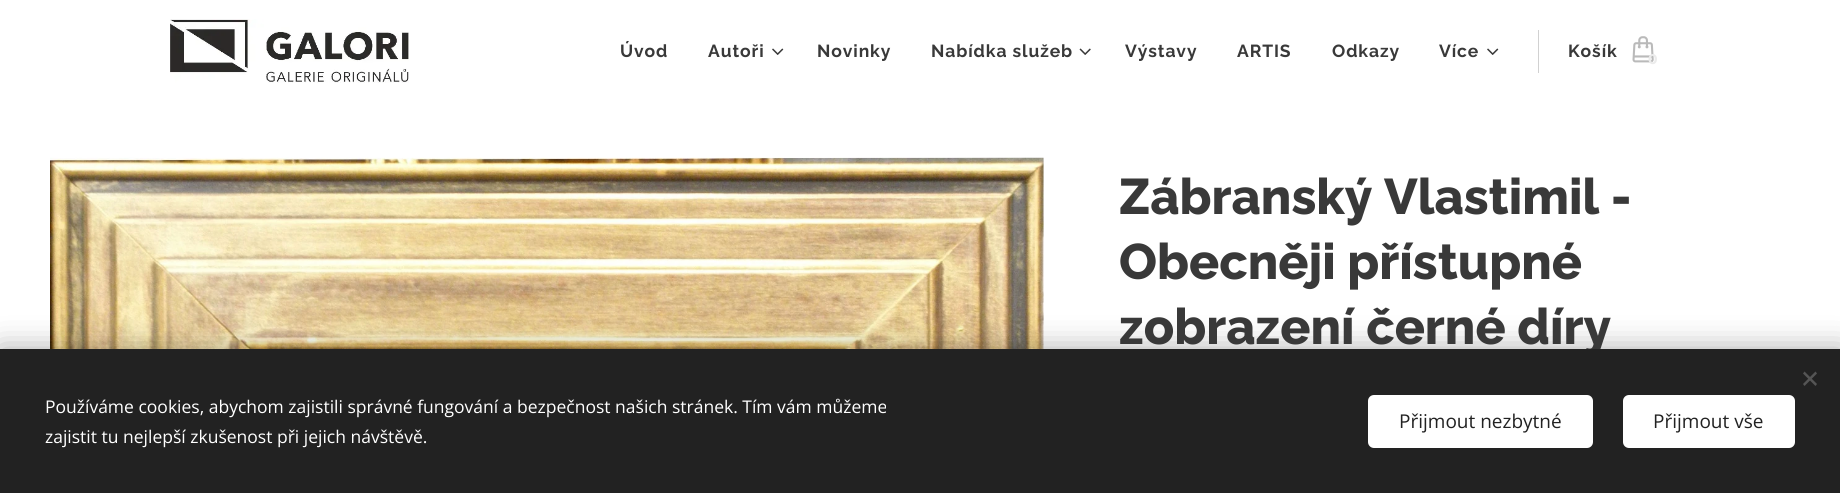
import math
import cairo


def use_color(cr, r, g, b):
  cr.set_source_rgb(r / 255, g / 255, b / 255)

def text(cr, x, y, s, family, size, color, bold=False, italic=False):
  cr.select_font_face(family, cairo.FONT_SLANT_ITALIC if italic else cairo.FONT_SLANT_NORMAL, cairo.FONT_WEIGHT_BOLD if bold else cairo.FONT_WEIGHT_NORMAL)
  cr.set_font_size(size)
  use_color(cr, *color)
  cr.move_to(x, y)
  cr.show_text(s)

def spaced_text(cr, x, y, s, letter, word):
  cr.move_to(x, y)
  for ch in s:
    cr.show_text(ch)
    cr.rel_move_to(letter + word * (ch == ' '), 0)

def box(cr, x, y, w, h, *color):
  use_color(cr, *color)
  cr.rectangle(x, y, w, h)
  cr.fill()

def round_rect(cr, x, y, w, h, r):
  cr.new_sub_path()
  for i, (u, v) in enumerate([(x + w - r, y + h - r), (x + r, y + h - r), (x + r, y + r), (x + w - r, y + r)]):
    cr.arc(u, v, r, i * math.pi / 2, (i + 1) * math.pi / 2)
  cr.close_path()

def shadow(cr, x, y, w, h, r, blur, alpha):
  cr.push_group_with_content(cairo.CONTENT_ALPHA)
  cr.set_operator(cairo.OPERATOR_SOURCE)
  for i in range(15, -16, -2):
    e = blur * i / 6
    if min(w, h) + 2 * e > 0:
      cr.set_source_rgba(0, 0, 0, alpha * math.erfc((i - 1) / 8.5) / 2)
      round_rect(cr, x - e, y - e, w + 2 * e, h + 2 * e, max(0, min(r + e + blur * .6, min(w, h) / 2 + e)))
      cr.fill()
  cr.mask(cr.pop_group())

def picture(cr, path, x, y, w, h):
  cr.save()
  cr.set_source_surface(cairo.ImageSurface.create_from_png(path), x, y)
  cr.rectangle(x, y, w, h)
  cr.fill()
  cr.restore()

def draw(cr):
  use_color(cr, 255, 255, 255)
  cr.paint()
  picture(cr, "img_01.png", 170, 19, 239, 64)
  picture(cr, "img_02.png", 772, 48, 12, 7)
  picture(cr, "img_03.png", 1079, 48, 12, 7)
  picture(cr, "img_02.png", 1487, 48, 12, 7)
  box(cr, 1538, 30, 1, 43, 209, 209, 209)
  picture(cr, "img_04.png", 1632, 36, 22, 27)
  picture(cr, "img_05.png", 50, 157, 994, 192)
  use_color(cr, 0, 0, 0)
  shadow(cr, 0, 349, 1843, 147, 0, 15.5, 0.33)
  cr.select_font_face("Raleway", cairo.FONT_SLANT_NORMAL, cairo.FONT_WEIGHT_BOLD)
  cr.set_font_size(17.5)
  use_color(cr, 57, 57, 57)
  spaced_text(cr, 620, 57, "Úvod", 0.9, 0)
  spaced_text(cr, 708, 57, "Autoři", 0.9, 0)
  spaced_text(cr, 817, 57, "Novinky", 0.9, 0)
  spaced_text(cr, 931, 57, "Nabídka služeb", 0.9, 0)
  spaced_text(cr, 1125, 57, "Výstavy", 0.9, 0)
  spaced_text(cr, 1237, 57, "ARTIS", 0.9, 0)
  spaced_text(cr, 1332, 57, "Odkazy", 0.9, 0)
  spaced_text(cr, 1439, 57, "Více", 0.9, 0)
  spaced_text(cr, 1568, 57, "Košík", 0.9, 0)
  text(cr, 1648, 64, "0", "Montserrat", 14, (235, 235, 235), bold=True)
  text(cr, 1119, 214, "Zábranský Vlastimil -", "Raleway ExtraBold", 50, (57, 57, 57))
  text(cr, 1119, 279, "Obecněji přístupné", "Raleway ExtraBold", 50, (57, 57, 57))
  text(cr, 1119, 344, "zobrazení černé díry", "Raleway ExtraBold", 50, (57, 57, 57))
  box(cr, 0, 349, 1840, 144, 34, 34, 34)
  use_color(cr, 85, 85, 85)
  cr.new_path()
  cr.move_to(1803, 384)
  cr.line_to(1815.5, 371.5)
  cr.line_to(1817, 373.5)
  cr.line_to(1804.5, 386)
  cr.close_path()
  cr.fill()
  cr.new_path()
  cr.move_to(1804.5, 371.5)
  cr.line_to(1817, 384)
  cr.line_to(1815.5, 386)
  cr.line_to(1803, 373.5)
  cr.close_path()
  cr.fill()
  text(cr, 45, 413, "Používáme cookies, abychom zajistili správné fungování a bezpečnost našich stránek. Tím vám můžeme", "Open Sans", 17.5, (255, 255, 255))
  text(cr, 45, 443, "zajistit tu nejlepší zkušenost při jejich návštěvě.", "Open Sans", 17.5, (255, 255, 255))
  round_rect(cr, 1368, 395, 225, 53, 6)
  cr.fill()
  text(cr, 1399, 428, "Přijmout nezbytné", "Open Sans", 19, (34, 34, 34))
  use_color(cr, 255, 255, 255)
  round_rect(cr, 1623, 395, 172, 53, 6)
  cr.fill()
  text(cr, 1653, 428, "Přijmout vše", "Open Sans", 19, (34, 34, 34))


surface = cairo.ImageSurface(cairo.FORMAT_RGB24, 1840, 493)
cr = cairo.Context(surface)
options = cairo.FontOptions()
options.set_hint_metrics(cairo.HINT_METRICS_OFF)
options.set_hint_style(cairo.HINT_STYLE_NONE)
cr.set_font_options(options)
cr.set_miter_limit(4)
draw(cr)
surface.write_to_png("out.png")
